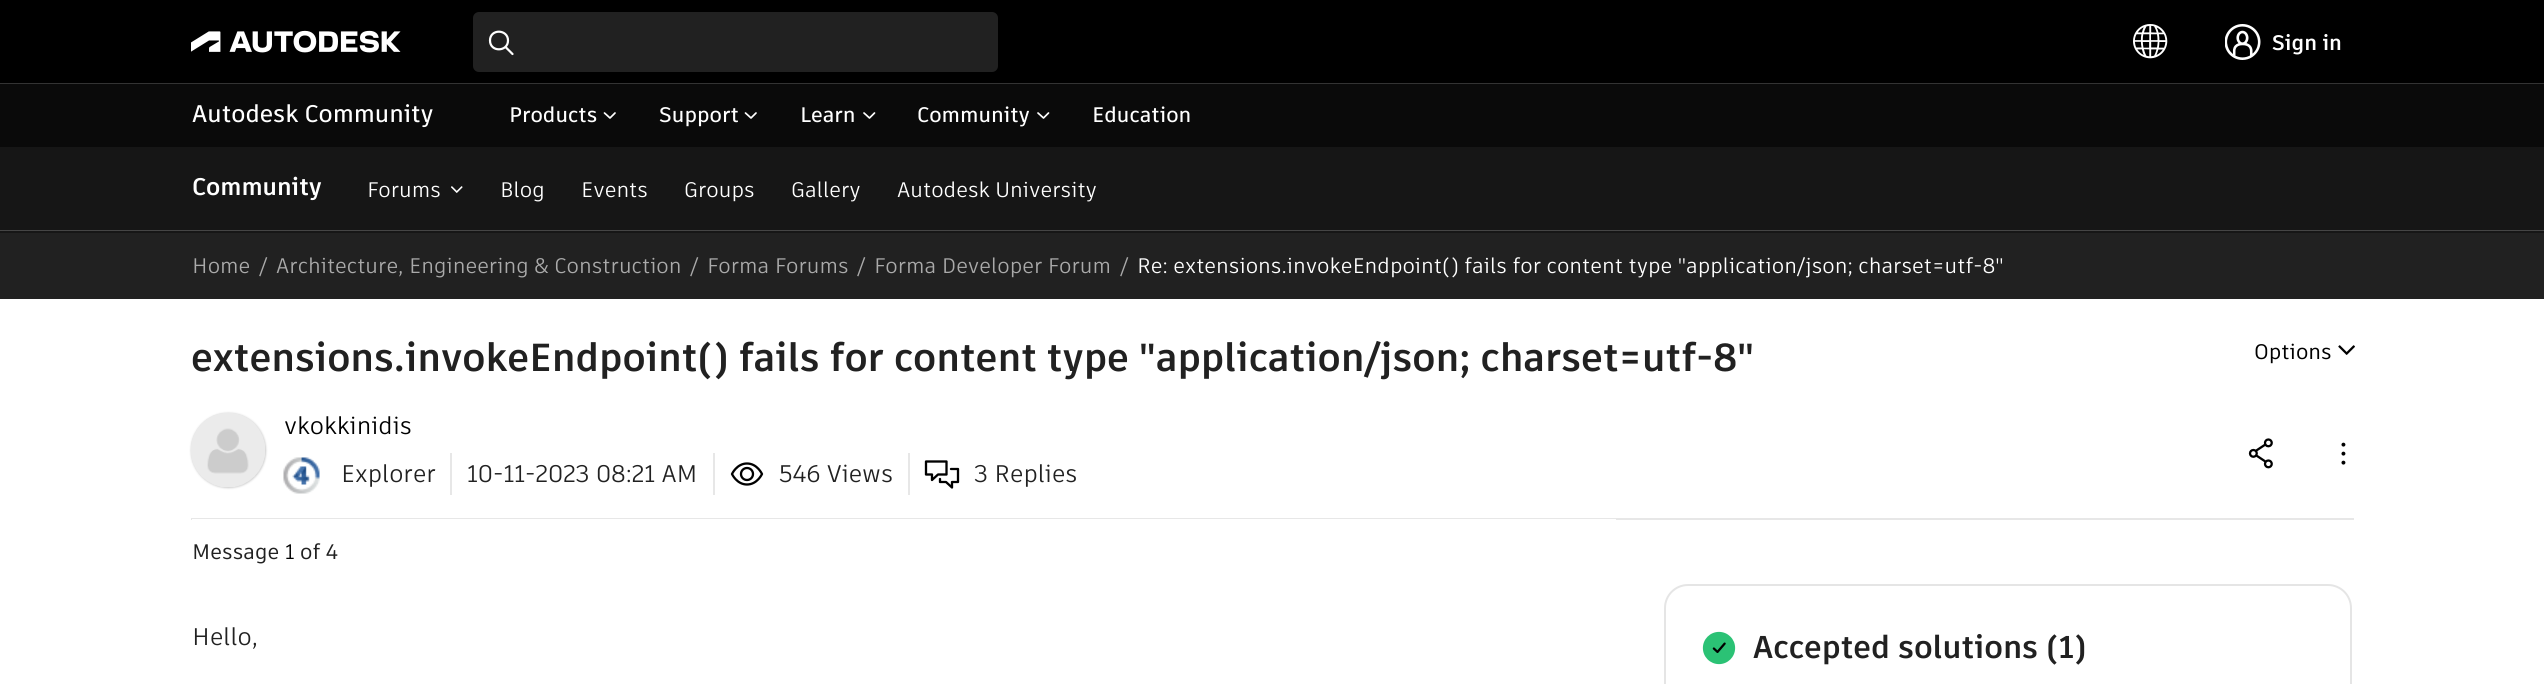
import math
import cairo


def use_color(cr, r, g, b):
  cr.set_source_rgb(r / 255, g / 255, b / 255)

def text(cr, x, y, s, family, size, color, bold=False, italic=False):
  cr.select_font_face(family, cairo.FONT_SLANT_ITALIC if italic else cairo.FONT_SLANT_NORMAL, cairo.FONT_WEIGHT_BOLD if bold else cairo.FONT_WEIGHT_NORMAL)
  cr.set_font_size(size)
  use_color(cr, *color)
  cr.move_to(x, y)
  cr.show_text(s)

def box(cr, x, y, w, h, *color):
  use_color(cr, *color)
  cr.rectangle(x, y, w, h)
  cr.fill()

def round_rect(cr, x, y, w, h, r):
  cr.new_sub_path()
  for i, (u, v) in enumerate([(x + w - r, y + h - r), (x + r, y + h - r), (x + r, y + r), (x + w - r, y + r)]):
    cr.arc(u, v, r, i * math.pi / 2, (i + 1) * math.pi / 2)
  cr.close_path()

def shadow(cr, x, y, w, h, r, blur, alpha):
  cr.push_group_with_content(cairo.CONTENT_ALPHA)
  cr.set_operator(cairo.OPERATOR_SOURCE)
  for i in range(15, -16, -2):
    e = blur * i / 6
    if min(w, h) + 2 * e > 0:
      cr.set_source_rgba(0, 0, 0, alpha * math.erfc((i - 1) / 8.5) / 2)
      round_rect(cr, x - e, y - e, w + 2 * e, h + 2 * e, max(0, min(r + e + blur * .6, min(w, h) / 2 + e)))
      cr.fill()
  cr.mask(cr.pop_group())

def picture(cr, path, x, y, w, h):
  cr.save()
  cr.set_source_surface(cairo.ImageSurface.create_from_png(path), x, y)
  cr.rectangle(x, y, w, h)
  cr.fill()
  cr.restore()

def draw(cr):
  use_color(cr, 255, 255, 255)
  cr.paint()
  box(cr, 0, 0, 2544, 83, 0, 0, 0)
  box(cr, 0, 84, 2544, 63, 10, 10, 10)
  picture(cr, "img_01.png", 191, 30, 210, 23)
  use_color(cr, 33, 33, 33)
  round_rect(cr, 473, 12, 525, 60, 6)
  cr.fill()
  cr.new_path()
  cr.move_to(505.5, 47)
  cr.line_to(512.5, 54)
  cr.move_to(508, 40.5)
  cr.curve_to(508, 52, 490, 52.5, 490, 40.5)
  cr.curve_to(490, 28.5, 508, 29, 508, 40.5)
  cr.close_path()
  use_color(cr, 255, 255, 255)
  cr.set_line_width(2.2)
  cr.set_line_cap(cairo.LINE_CAP_ROUND)
  cr.stroke()
  picture(cr, "img_02.png", 2133, 24, 35, 35)
  picture(cr, "img_03.png", 2225, 24, 36, 36)
  box(cr, 0, 83, 2544, 1, 51, 51, 51)
  cr.new_path()
  cr.move_to(615, 113)
  cr.line_to(610, 118)
  cr.line_to(604.5, 113)
  use_color(cr, 255, 255, 255)
  cr.set_line_width(1.7)
  cr.set_line_join(cairo.LINE_JOIN_ROUND)
  cr.stroke()
  cr.new_path()
  cr.move_to(756, 113)
  cr.line_to(751, 118)
  cr.line_to(745.5, 113)
  cr.stroke()
  cr.new_path()
  cr.move_to(874.5, 113)
  cr.line_to(869.5, 118)
  cr.line_to(864, 113)
  cr.stroke()
  cr.new_path()
  cr.move_to(1048.5, 113)
  cr.line_to(1043.5, 118)
  cr.line_to(1038, 113)
  cr.stroke()
  box(cr, 0, 147, 2544, 86, 22, 22, 22)
  picture(cr, "img_04.png", 451, 186, 12, 7)
  box(cr, 0, 230, 2544, 1, 69, 69, 69)
  box(cr, 0, 233, 2544, 66, 33, 33, 33)
  box(cr, 191, 518, 2163, 2, 231, 231, 231)
  picture(cr, "img_05.png", 2338, 345, 17, 10)
  use_color(cr, 204, 204, 204)
  shadow(cr, 191, 413, 75, 75, 37.5, 1, 1)
  picture(cr, "img_06.png", 191, 413, 74, 74)
  box(cr, 450, 453, 2, 42, 231, 231, 231)
  picture(cr, "img_07.png", 283, 457, 37, 37)
  box(cr, 713, 453, 2, 42, 231, 231, 231)
  box(cr, 908, 453, 2, 42, 231, 231, 231)
  picture(cr, "img_08.png", 730, 462, 34, 24)
  cr.new_path()
  cr.move_to(951, 469)
  cr.line_to(958, 469)
  cr.line_to(958, 482)
  cr.line_to(952, 482)
  cr.line_to(952, 487.5)
  cr.line_to(946, 482)
  cr.line_to(940, 482)
  cr.line_to(940, 479)
  cr.move_to(926, 461.5)
  cr.line_to(926, 474.5)
  cr.line_to(932, 474.5)
  cr.line_to(932, 480)
  cr.line_to(938, 474.5)
  cr.line_to(946.5, 474.5)
  cr.line_to(946.5, 461.5)
  cr.close_path()
  use_color(cr, 0, 0, 0)
  cr.set_line_width(2.3)
  cr.stroke()
  picture(cr, "img_09.png", 2248, 438, 25, 31)
  picture(cr, "img_10.png", 2341, 442, 5, 23)
  box(cr, 192, 519, 1424, 1, 255, 255, 255)
  round_rect(cr, 1665, 585, 686, 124, 23)
  use_color(cr, 229, 229, 229)
  cr.set_line_width(2)
  cr.set_line_cap(cairo.LINE_CAP_BUTT)
  cr.set_line_join(cairo.LINE_JOIN_MITER)
  cr.stroke()
  picture(cr, "img_11.png", 1702, 631, 34, 34)
  text(cr, 2272, 50, "Sign in", "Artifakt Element", 21, (255, 255, 255), bold=True)
  text(cr, 192, 122, "Autodesk Community", "Artifakt Element SemiBold", 24, (255, 255, 255))
  text(cr, 509, 122, "Products", "Artifakt Element SemiBold", 21, (255, 255, 255))
  text(cr, 659, 122, "Support", "Artifakt Element SemiBold", 21, (255, 255, 255))
  text(cr, 800, 122, "Learn", "Artifakt Element SemiBold", 21, (255, 255, 255))
  text(cr, 917, 122, "Community", "Artifakt Element SemiBold", 21, (255, 255, 255))
  text(cr, 1092, 122, "Education", "Artifakt Element SemiBold", 21, (255, 255, 255))
  text(cr, 192, 195, "Community", "Artifakt Element", 24, (255, 255, 255), bold=True)
  text(cr, 367, 197, "Forums", "Artifakt Element", 21, (255, 255, 255))
  text(cr, 500, 197, "Blog", "Artifakt Element", 21, (255, 255, 255))
  text(cr, 581, 197, "Events", "Artifakt Element", 21, (255, 255, 255))
  text(cr, 684, 197, "Groups", "Artifakt Element", 21, (255, 255, 255))
  text(cr, 791, 197, "Gallery", "Artifakt Element", 21, (255, 255, 255))
  text(cr, 897, 197, "Autodesk University", "Artifakt Element", 21, (255, 255, 255))
  text(cr, 192, 273, "Home", "Artifakt Element", 21, (170, 170, 170))
  text(cr, 259, 273, "/", "Artifakt Element", 21, (170, 170, 170))
  text(cr, 276, 273, "Architecture, Engineering & Construction", "Artifakt Element", 21, (170, 170, 170))
  text(cr, 690, 273, "/", "Artifakt Element", 21, (170, 170, 170))
  text(cr, 707, 273, "Forma Forums", "Artifakt Element", 21, (170, 170, 170))
  text(cr, 857, 273, "/", "Artifakt Element", 21, (170, 170, 170))
  text(cr, 874, 273, "Forma Developer Forum", "Artifakt Element", 21, (170, 170, 170))
  text(cr, 1120, 273, "/", "Artifakt Element", 21, (170, 170, 170))
  text(cr, 1137, 273, "Re: extensions.invokeEndpoint() fails for content type \"application/json; charset=utf-8\"", "Artifakt Element", 21, (255, 255, 255))
  text(cr, 191, 371, "extensions.invokeEndpoint() fails for content type \"application/json; charset=utf-8\"", "Artifakt Element", 39, (33, 33, 33), bold=True)
  text(cr, 2254, 359, "Options", "Artifakt Element Medium", 21, (0, 0, 0))
  text(cr, 284, 434, "vkokkinidis", "Artifakt Element", 24, (0, 0, 0))
  text(cr, 341, 482, "Explorer", "Artifakt Element", 24, (33, 33, 33))
  text(cr, 467, 482, "10-11-2023 08:21 AM", "Artifakt Element", 24, (33, 33, 33))
  text(cr, 779, 482, "546 Views", "Artifakt Element", 24, (33, 33, 33))
  text(cr, 974, 482, "3 Replies", "Artifakt Element", 24, (33, 33, 33))
  text(cr, 192, 559, "Message", "Artifakt Element Medium", 21, (33, 33, 33))
  text(cr, 285, 559, "1", "Artifakt Element", 21, (0, 0, 0))
  text(cr, 300, 559, "of 4", "Artifakt Element Medium", 21, (33, 33, 33))
  text(cr, 192, 645, "Hello,", "Artifakt Element", 24, (33, 33, 33))
  text(cr, 1753, 658, "Accepted solutions (1)", "Artifakt Element", 31.5, (33, 33, 33), bold=True)


surface = cairo.ImageSurface(cairo.FORMAT_RGB24, 2544, 684)
cr = cairo.Context(surface)
options = cairo.FontOptions()
options.set_hint_metrics(cairo.HINT_METRICS_OFF)
options.set_hint_style(cairo.HINT_STYLE_NONE)
cr.set_font_options(options)
cr.set_miter_limit(4)
draw(cr)
surface.write_to_png("out.png")
